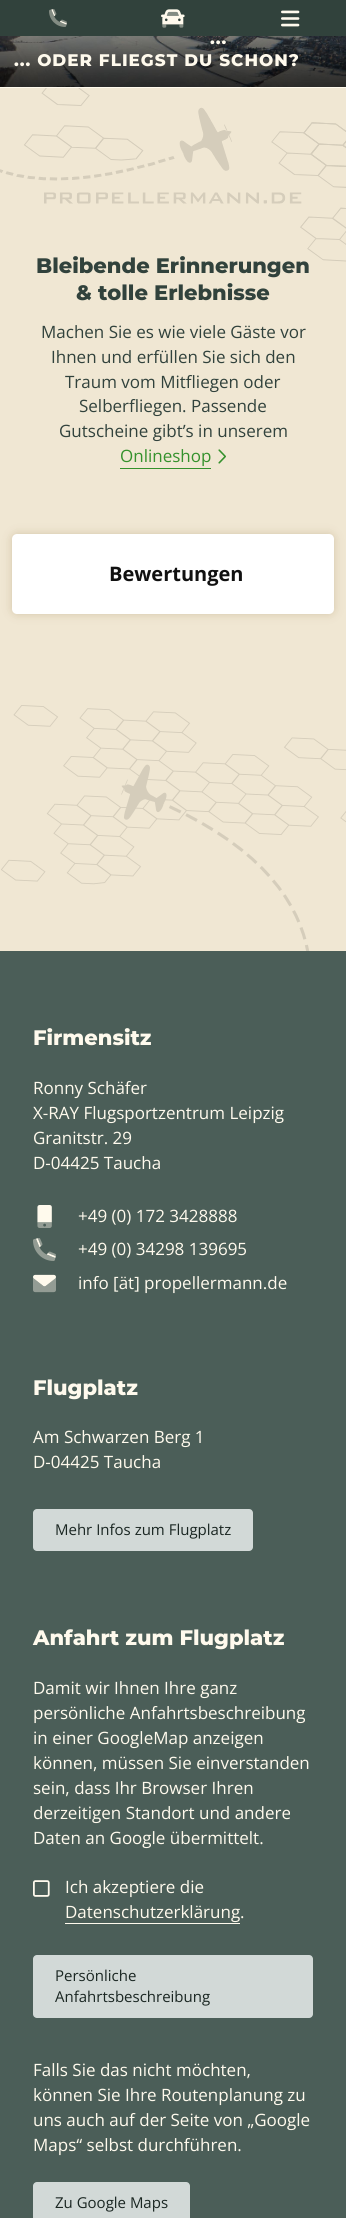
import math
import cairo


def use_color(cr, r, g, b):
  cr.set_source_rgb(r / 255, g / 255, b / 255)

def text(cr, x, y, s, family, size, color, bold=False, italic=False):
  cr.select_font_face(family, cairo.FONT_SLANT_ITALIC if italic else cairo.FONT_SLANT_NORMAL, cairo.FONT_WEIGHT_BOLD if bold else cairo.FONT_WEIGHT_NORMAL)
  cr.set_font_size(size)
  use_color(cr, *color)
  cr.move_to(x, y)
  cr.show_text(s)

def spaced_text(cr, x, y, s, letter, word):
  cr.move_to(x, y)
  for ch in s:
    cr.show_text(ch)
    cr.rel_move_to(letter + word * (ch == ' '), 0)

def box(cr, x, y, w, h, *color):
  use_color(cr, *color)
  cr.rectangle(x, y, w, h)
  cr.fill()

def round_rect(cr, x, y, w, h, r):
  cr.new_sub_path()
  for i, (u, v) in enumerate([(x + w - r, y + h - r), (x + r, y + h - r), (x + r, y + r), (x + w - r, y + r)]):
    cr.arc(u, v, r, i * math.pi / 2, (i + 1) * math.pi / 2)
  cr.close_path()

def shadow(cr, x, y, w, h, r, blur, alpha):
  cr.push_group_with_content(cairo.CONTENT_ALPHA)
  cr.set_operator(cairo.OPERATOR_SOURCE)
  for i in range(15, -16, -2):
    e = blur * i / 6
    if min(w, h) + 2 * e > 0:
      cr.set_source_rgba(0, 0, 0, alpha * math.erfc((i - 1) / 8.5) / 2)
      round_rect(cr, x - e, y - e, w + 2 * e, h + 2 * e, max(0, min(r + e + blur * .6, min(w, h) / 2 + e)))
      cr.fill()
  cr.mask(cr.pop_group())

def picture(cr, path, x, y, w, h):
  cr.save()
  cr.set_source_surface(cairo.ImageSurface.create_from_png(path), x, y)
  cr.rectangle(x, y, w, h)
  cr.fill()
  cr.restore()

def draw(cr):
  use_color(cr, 255, 250, 237)
  cr.paint()
  box(cr, 0, 0, 346, 36, 49, 66, 60)
  picture(cr, "img_01.png", 49, 9, 18, 18)
  picture(cr, "img_02.png", 161, 9, 24, 19)
  picture(cr, "img_03.png", 281, 10, 19, 17)
  picture(cr, "img_04.png", 0, 36, 346, 51)
  box(cr, 0, 88, 346, 863, 240, 231, 211)
  picture(cr, "img_05.png", 0, 88, 346, 174)
  box(cr, 120, 468, 91, 1, 52, 145, 44)
  picture(cr, "img_06.png", 218, 449, 8, 15)
  use_color(cr, 99, 63, 1)
  shadow(cr, 12, 534, 322, 80, 5, 5, 0.2)
  use_color(cr, 255, 255, 255)
  round_rect(cr, 12, 534, 322, 80, 5)
  cr.fill()
  picture(cr, "img_07.png", 1, 705, 345, 246)
  box(cr, 0, 951, 346, 1267, 75, 94, 88)
  picture(cr, "img_08.png", 37, 1205, 15, 23)
  picture(cr, "img_09.png", 33, 1238, 23, 23)
  picture(cr, "img_10.png", 33, 1274, 23, 19)
  use_color(cr, 210, 217, 215)
  round_rect(cr, 33, 1509, 220, 42, 4)
  cr.fill()
  picture(cr, "img_11.png", 33, 1880, 17, 17)
  box(cr, 65, 1923, 175, 1, 255, 250, 237)
  use_color(cr, 210, 217, 215)
  round_rect(cr, 33, 1955, 280, 63, 4)
  cr.fill()
  round_rect(cr, 33, 2182, 157, 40, 4)
  cr.fill()
  cr.select_font_face("Montserrat ExtraBold")
  cr.set_font_size(16.8)
  use_color(cr, 255, 250, 237)
  spaced_text(cr, 210, 44, "...", 1, 0)
  spaced_text(cr, 14, 66, "... ODER FLIEGST DU SCHON?", 1, 0)
  text(cr, 36, 273, "Bleibende Erinnerungen", "Montserrat ExtraBold", 21, (49, 66, 60))
  text(cr, 76, 300, "& tolle Erlebnisse", "Montserrat ExtraBold", 21, (49, 66, 60))
  text(cr, 41, 338, "Machen Sie es wie viele Gäste vor", "Open Sans", 17, (49, 66, 60))
  text(cr, 51, 363, "Ihnen und erfüllen Sie sich den", "Open Sans", 17, (49, 66, 60))
  text(cr, 65, 388, "Traum vom Mitfliegen oder", "Open Sans", 17, (49, 66, 60))
  text(cr, 79, 412, "Selberfliegen. Passende", "Open Sans", 17, (49, 66, 60))
  text(cr, 59, 437, "Gutscheine gibt’s in unserem", "Open Sans", 17, (49, 66, 60))
  text(cr, 120, 462, "Onlineshop", "Open Sans", 17, (52, 145, 44))
  text(cr, 109, 581, "Bewertungen", "Open Sans", 20, (17, 17, 17), bold=True)
  text(cr, 33, 1045, "Firmensitz", "Montserrat ExtraBold", 21, (255, 250, 237))
  text(cr, 33, 1094, "Ronny Schäfer", "Open Sans", 17, (255, 250, 237))
  text(cr, 33, 1119, "X-RAY Flugsportzentrum Leipzig", "Open Sans", 17, (255, 250, 237))
  text(cr, 33, 1144, "Granitstr. 29", "Open Sans", 17, (255, 250, 237))
  text(cr, 33, 1169, "D-04425 Taucha", "Open Sans", 17, (255, 250, 237))
  text(cr, 78, 1222, "+49 (0) 172 3428888", "Open Sans", 17, (255, 250, 237))
  text(cr, 78, 1255, "+49 (0) 34298 139695", "Open Sans", 17, (255, 250, 237))
  text(cr, 78, 1289, "info [ät] propellermann.de", "Open Sans", 17, (255, 250, 237))
  text(cr, 33, 1395, "Flugplatz", "Montserrat ExtraBold", 21, (255, 250, 237))
  text(cr, 33, 1443, "Am Schwarzen Berg 1", "Open Sans", 17, (255, 250, 237))
  text(cr, 33, 1468, "D-04425 Taucha", "Open Sans", 17, (255, 250, 237))
  text(cr, 55, 1535, "Mehr Infos zum Flugplatz", "Open Sans", 15, (26, 38, 34))
  text(cr, 33, 1645, "Anfahrt zum Flugplatz", "Montserrat ExtraBold", 21, (255, 250, 237))
  text(cr, 33, 1694, "Damit wir Ihnen Ihre ganz", "Open Sans", 17, (255, 250, 237))
  text(cr, 33, 1719, "persönliche Anfahrtsbeschreibung", "Open Sans", 17, (255, 250, 237))
  text(cr, 33, 1744, "in einer GoogleMap anzeigen", "Open Sans", 17, (255, 250, 237))
  text(cr, 33, 1769, "können, müssen Sie einverstanden", "Open Sans", 17, (255, 250, 237))
  text(cr, 33, 1794, "sein, dass Ihr Browser Ihren", "Open Sans", 17, (255, 250, 237))
  text(cr, 33, 1819, "derzeitigen Standort und andere", "Open Sans", 17, (255, 250, 237))
  text(cr, 33, 1844, "Daten an Google übermittelt.", "Open Sans", 17, (255, 250, 237))
  text(cr, 65, 1893, "Ich akzeptiere die", "Open Sans", 17, (255, 250, 237))
  text(cr, 65, 1918, "Datenschutzerklärung", "Open Sans", 17, (255, 250, 237))
  text(cr, 240, 1918, ".", "Open Sans", 17, (255, 250, 237))
  text(cr, 55, 1981, "Persönliche", "Open Sans", 15, (26, 38, 34))
  text(cr, 55, 2002, "Anfahrtsbeschreibung", "Open Sans", 15, (26, 38, 34))
  text(cr, 33, 2076, "Falls Sie das nicht möchten,", "Open Sans", 17, (255, 250, 237))
  text(cr, 33, 2101, "können Sie Ihre Routenplanung zu", "Open Sans", 17, (255, 250, 237))
  text(cr, 33, 2126, "uns auch auf der Seite von „Google", "Open Sans", 17, (255, 250, 237))
  text(cr, 33, 2151, "Maps“ selbst durchführen.", "Open Sans", 17, (255, 250, 237))
  text(cr, 55, 2208, "Zu Google Maps", "Open Sans", 15, (26, 38, 34))


surface = cairo.ImageSurface(cairo.FORMAT_RGB24, 346, 2218)
cr = cairo.Context(surface)
options = cairo.FontOptions()
options.set_hint_metrics(cairo.HINT_METRICS_OFF)
options.set_hint_style(cairo.HINT_STYLE_NONE)
cr.set_font_options(options)
cr.set_miter_limit(4)
draw(cr)
surface.write_to_png("out.png")
